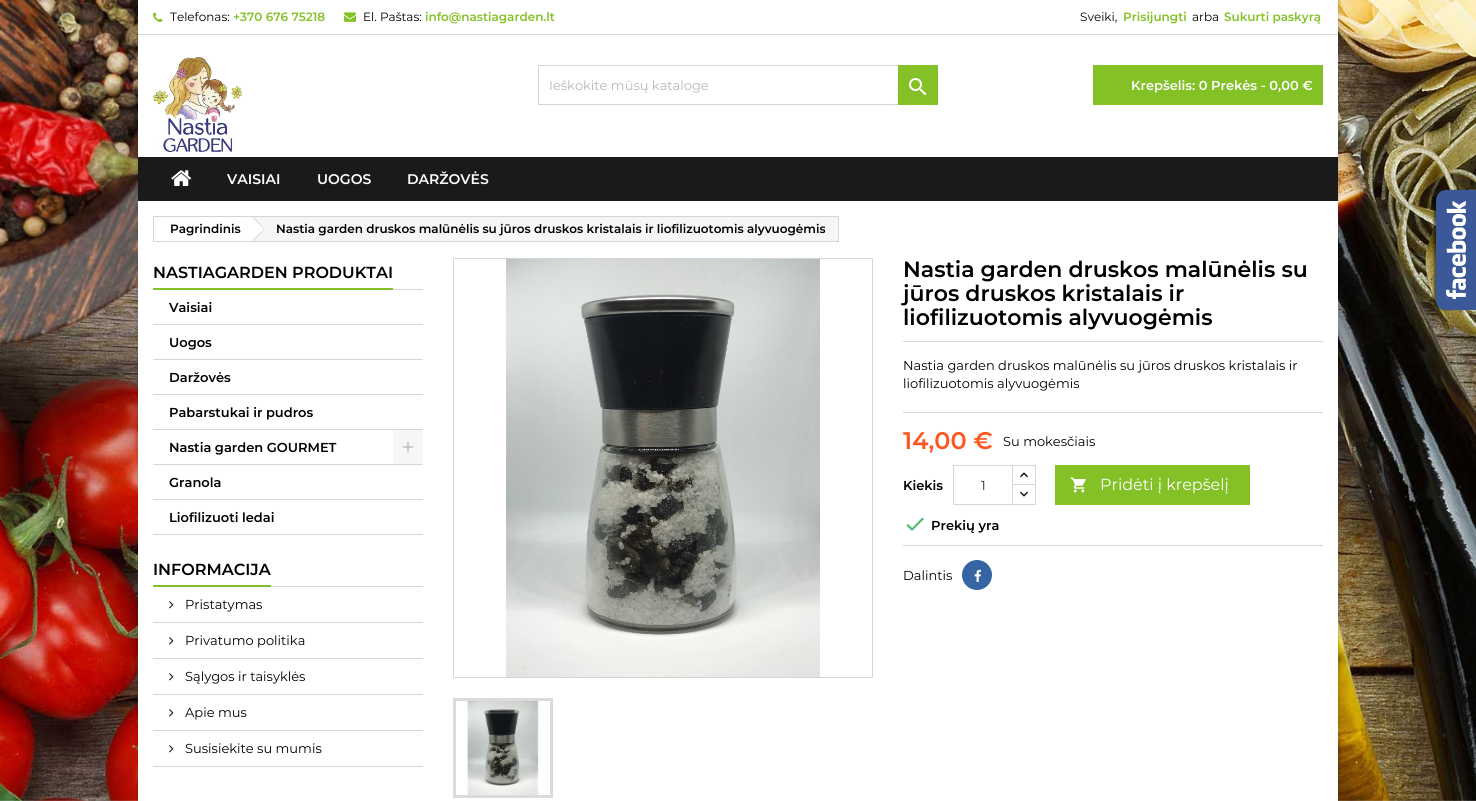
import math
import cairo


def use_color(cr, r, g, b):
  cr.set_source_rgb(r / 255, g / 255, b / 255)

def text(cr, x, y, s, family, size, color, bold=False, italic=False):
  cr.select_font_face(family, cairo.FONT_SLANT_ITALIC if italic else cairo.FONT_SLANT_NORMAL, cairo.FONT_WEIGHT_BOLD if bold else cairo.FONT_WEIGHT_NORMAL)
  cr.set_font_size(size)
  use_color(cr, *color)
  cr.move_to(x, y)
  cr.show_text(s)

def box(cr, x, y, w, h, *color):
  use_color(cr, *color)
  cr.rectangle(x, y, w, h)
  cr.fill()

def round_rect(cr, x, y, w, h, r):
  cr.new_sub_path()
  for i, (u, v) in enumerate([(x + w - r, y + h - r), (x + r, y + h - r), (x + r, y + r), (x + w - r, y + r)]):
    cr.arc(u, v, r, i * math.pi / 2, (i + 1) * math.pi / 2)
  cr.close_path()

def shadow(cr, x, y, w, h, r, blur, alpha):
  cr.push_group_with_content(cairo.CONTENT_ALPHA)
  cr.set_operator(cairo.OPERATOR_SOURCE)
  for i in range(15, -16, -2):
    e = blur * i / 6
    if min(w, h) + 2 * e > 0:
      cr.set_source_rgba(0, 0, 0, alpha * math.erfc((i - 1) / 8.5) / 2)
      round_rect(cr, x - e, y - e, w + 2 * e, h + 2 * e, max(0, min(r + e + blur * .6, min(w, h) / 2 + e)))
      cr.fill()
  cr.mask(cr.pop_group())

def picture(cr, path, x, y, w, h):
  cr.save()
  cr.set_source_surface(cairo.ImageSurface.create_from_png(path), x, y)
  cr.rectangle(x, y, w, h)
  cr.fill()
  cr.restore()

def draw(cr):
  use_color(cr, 255, 255, 255)
  cr.paint()
  picture(cr, "img_01.png", 0, 0, 1476, 801)
  use_color(cr, 0, 0, 0)
  shadow(cr, 138, 0, 1200, 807, 0, 2, 0.2)
  box(cr, 138, 0, 1200, 801, 255, 255, 255)
  box(cr, 138, 34, 1200, 1, 214, 212, 212)
  picture(cr, "img_02.png", 153, 12, 10, 10)
  picture(cr, "img_03.png", 344, 12, 12, 10)
  picture(cr, "img_04.png", 153, 57, 89, 95)
  cr.rectangle(538.5, 65.5, 399, 39)
  cr.set_line_width(1)
  cr.stroke()
  box(cr, 898, 65, 40, 40, 131, 193, 39)
  picture(cr, "img_05.png", 909, 78, 18, 18)
  box(cr, 1093, 65, 230, 40, 131, 193, 39)
  box(cr, 138, 157, 1200, 44, 27, 26, 27)
  picture(cr, "img_06.png", 171, 170, 21, 16)
  cr.rectangle(153.5, 216.5, 685, 25)
  use_color(cr, 214, 212, 212)
  cr.stroke()
  box(cr, 254, 217, 584, 24, 246, 246, 246)
  box(cr, 393, 289, 30, 1, 214, 212, 212)
  box(cr, 153, 288, 240, 2, 131, 193, 39)
  box(cr, 153, 324, 270, 1, 214, 212, 212)
  box(cr, 153, 359, 270, 1, 214, 212, 212)
  box(cr, 153, 394, 270, 1, 214, 212, 212)
  box(cr, 153, 429, 270, 1, 214, 212, 212)
  box(cr, 153, 464, 270, 1, 214, 212, 212)
  box(cr, 393, 430, 30, 34, 246, 246, 246)
  picture(cr, "img_07.png", 402, 441, 12, 12)
  box(cr, 153, 499, 270, 1, 214, 212, 212)
  box(cr, 153, 534, 270, 1, 214, 212, 212)
  box(cr, 271, 586, 152, 1, 214, 212, 212)
  box(cr, 153, 585, 118, 2, 131, 193, 39)
  box(cr, 153, 622, 270, 1, 214, 212, 212)
  picture(cr, "img_08.png", 169, 601, 5, 8)
  box(cr, 153, 658, 270, 1, 214, 212, 212)
  picture(cr, "img_08.png", 169, 637, 5, 8)
  box(cr, 153, 694, 270, 1, 214, 212, 212)
  picture(cr, "img_08.png", 169, 673, 5, 8)
  box(cr, 153, 730, 270, 1, 214, 212, 212)
  picture(cr, "img_08.png", 169, 709, 5, 8)
  box(cr, 153, 766, 270, 1, 214, 212, 212)
  picture(cr, "img_08.png", 169, 745, 5, 8)
  cr.rectangle(453.5, 258.5, 419, 419)
  cr.stroke()
  picture(cr, "img_09.png", 506, 259, 314, 418)
  cr.rectangle(454.5, 699.5, 97, 97)
  use_color(cr, 219, 219, 219)
  cr.set_line_width(3)
  cr.stroke()
  picture(cr, "img_10.png", 467, 701, 72, 94)
  box(cr, 903, 341, 420, 1, 214, 212, 212)
  box(cr, 903, 412, 420, 1, 214, 212, 212)
  cr.rectangle(1012.5, 465.5, 23, 20)
  cr.set_line_width(1)
  cr.stroke()
  box(cr, 1013, 485, 22, 1, 255, 255, 255)
  cr.rectangle(1012.5, 484.5, 23, 20)
  use_color(cr, 214, 212, 212)
  cr.stroke()
  cr.rectangle(953.5, 465.5, 59, 39)
  cr.stroke()
  picture(cr, "img_11.png", 1020, 472, 8, 6)
  picture(cr, "img_12.png", 1020, 491, 8, 6)
  box(cr, 1055, 465, 195, 40, 131, 193, 39)
  picture(cr, "img_13.png", 1070, 477, 16, 16)
  use_color(cr, 76, 187, 108)
  cr.new_path()
  cr.move_to(912, 528)
  cr.line_to(922.5, 517.5)
  cr.line_to(924, 519)
  cr.line_to(912, 531)
  cr.line_to(906.5, 525.5)
  cr.line_to(908, 524)
  cr.close_path()
  cr.fill()
  box(cr, 903, 545, 420, 1, 214, 212, 212)
  use_color(cr, 55, 101, 163)
  cr.arc(977, 575, 15, 0, 2 * math.pi)
  cr.fill()
  picture(cr, "img_14.png", 974, 569, 7, 13)
  use_color(cr, 0, 0, 0)
  shadow(cr, 1434, 190, 40, 120, 10, 1, 0.5)
  use_color(cr, 59, 89, 152)
  cr.new_path()
  cr.move_to(1446, 190)
  cr.line_to(1476, 190)
  cr.line_to(1476, 310)
  cr.line_to(1446, 310)
  cr.curve_to(1440.5, 310, 1436, 305.5, 1436, 300)
  cr.line_to(1436, 200)
  cr.curve_to(1436, 194.5, 1440.5, 190, 1446, 190)
  cr.close_path()
  cr.fill()
  picture(cr, "img_15.png", 1446, 201, 20, 98)
  text(cr, 170, 21, "Telefonas:", "Montserrat", 12, (0, 0, 0))
  text(cr, 233, 21, "+370 676 75218", "Montserrat SemiBold", 12, (131, 193, 39))
  text(cr, 363, 21, "El. Paštas:", "Montserrat", 12, (0, 0, 0))
  text(cr, 425, 21, "info@nastiagarden.lt", "Montserrat SemiBold", 12, (131, 193, 39))
  text(cr, 1080, 21, "Sveiki,", "Montserrat", 12, (0, 0, 0))
  text(cr, 1123, 21, "Prisijungti", "Montserrat SemiBold", 12, (131, 193, 39))
  text(cr, 1192, 21, "arba", "Montserrat", 12, (0, 0, 0))
  text(cr, 1224, 21, "Sukurti paskyrą", "Montserrat SemiBold", 12, (131, 193, 39))
  text(cr, 549, 90, "Ieškokite mūsų kataloge", "Montserrat", 13, (183, 183, 183))
  text(cr, 1131, 90, "Krepšelis: 0 Prekės - 0,00 €", "Montserrat SemiBold", 13, (255, 255, 255))
  text(cr, 227, 184, "VAISIAI", "Montserrat SemiBold", 14, (255, 255, 255))
  text(cr, 317, 184, "UOGOS", "Montserrat SemiBold", 14, (255, 255, 255))
  text(cr, 407, 184, "DARŽOVĖS", "Montserrat SemiBold", 14, (255, 255, 255))
  text(cr, 170, 233, "Pagrindinis", "Montserrat SemiBold", 12, (0, 0, 0))
  use_color(cr, 255, 255, 255)
  cr.new_path()
  cr.move_to(254, 217.5)
  cr.line_to(264, 227.5)
  cr.curve_to(264.5, 228.5, 264.5, 229.5, 264, 230.5)
  cr.line_to(254, 240.5)
  cr.curve_to(253.5, 241, 252, 241, 251, 240.5)
  cr.line_to(241.5, 230.5)
  cr.curve_to(240.5, 229.5, 240.5, 228.5, 241.5, 227.5)
  cr.line_to(251, 217.5)
  cr.curve_to(252, 217, 253.5, 217, 254, 217.5)
  cr.close_path()
  cr.fill()
  use_color(cr, 214, 212, 212)
  cr.new_path()
  cr.move_to(253.5, 217)
  cr.line_to(264.5, 228.5)
  cr.line_to(264, 229)
  cr.line_to(252.5, 217.5)
  cr.close_path()
  cr.move_to(264, 229)
  cr.line_to(264.5, 229.5)
  cr.line_to(253.5, 241)
  cr.line_to(252.5, 240.5)
  cr.close_path()
  cr.fill()
  text(cr, 276, 233, "Nastia garden druskos malūnėlis su jūros druskos kristalais ir liofilizuotomis alyvuogėmis", "Montserrat SemiBold", 12, (0, 0, 0))
  text(cr, 153, 278, "NASTIAGARDEN PRODUKTAI", "Montserrat SemiBold", 16, (0, 0, 0))
  text(cr, 169, 312, "Vaisiai", "Montserrat SemiBold", 13, (0, 0, 0))
  text(cr, 169, 347, "Uogos", "Montserrat SemiBold", 13, (0, 0, 0))
  text(cr, 169, 382, "Daržovės", "Montserrat SemiBold", 13, (0, 0, 0))
  text(cr, 169, 417, "Pabarstukai ir pudros", "Montserrat SemiBold", 13, (0, 0, 0))
  text(cr, 169, 452, "Nastia garden GOURMET", "Montserrat SemiBold", 13, (0, 0, 0))
  text(cr, 169, 487, "Granola", "Montserrat SemiBold", 13, (0, 0, 0))
  text(cr, 169, 522, "Liofilizuoti ledai", "Montserrat SemiBold", 13, (0, 0, 0))
  text(cr, 153, 575, "INFORMACIJA", "Montserrat SemiBold", 16, (0, 0, 0))
  text(cr, 185, 609, "Pristatymas", "Montserrat", 13, (0, 0, 0))
  text(cr, 185, 645, "Privatumo politika", "Montserrat", 13, (0, 0, 0))
  text(cr, 185, 681, "Sąlygos ir taisyklės", "Montserrat", 13, (0, 0, 0))
  text(cr, 185, 717, "Apie mus", "Montserrat", 13, (0, 0, 0))
  text(cr, 185, 753, "Susisiekite su mumis", "Montserrat", 13, (0, 0, 0))
  text(cr, 903, 277, "Nastia garden druskos malūnėlis su", "Montserrat SemiBold", 22, (0, 0, 0))
  text(cr, 903, 301, "jūros druskos kristalais ir", "Montserrat SemiBold", 22, (0, 0, 0))
  text(cr, 903, 325, "liofilizuotomis alyvuogėmis", "Montserrat SemiBold", 22, (0, 0, 0))
  text(cr, 903, 370, "Nastia garden druskos malūnėlis su jūros druskos kristalais ir", "Montserrat", 13, (0, 0, 0))
  text(cr, 903, 388, "liofilizuotomis alyvuogėmis", "Montserrat", 13, (0, 0, 0))
  text(cr, 903, 449, "14,00 €", "Montserrat SemiBold", 24, (255, 87, 34))
  text(cr, 1003, 446, "Su mokesčiais", "Montserrat", 13, (0, 0, 0))
  text(cr, 903, 490, "Kiekis", "Montserrat SemiBold", 13, (0, 0, 0))
  text(cr, 981, 490, "1", "Montserrat", 13, (35, 35, 35))
  text(cr, 1100, 490, "Pridėti į krepšelį", "Montserrat", 16, (255, 255, 255))
  text(cr, 931, 530, "Prekių yra", "Montserrat SemiBold", 13, (0, 0, 0))
  text(cr, 903, 580, "Dalintis", "Montserrat", 13, (0, 0, 0))


surface = cairo.ImageSurface(cairo.FORMAT_RGB24, 1476, 801)
cr = cairo.Context(surface)
options = cairo.FontOptions()
options.set_hint_metrics(cairo.HINT_METRICS_OFF)
options.set_hint_style(cairo.HINT_STYLE_NONE)
cr.set_font_options(options)
cr.set_miter_limit(4)
draw(cr)
surface.write_to_png("out.png")
